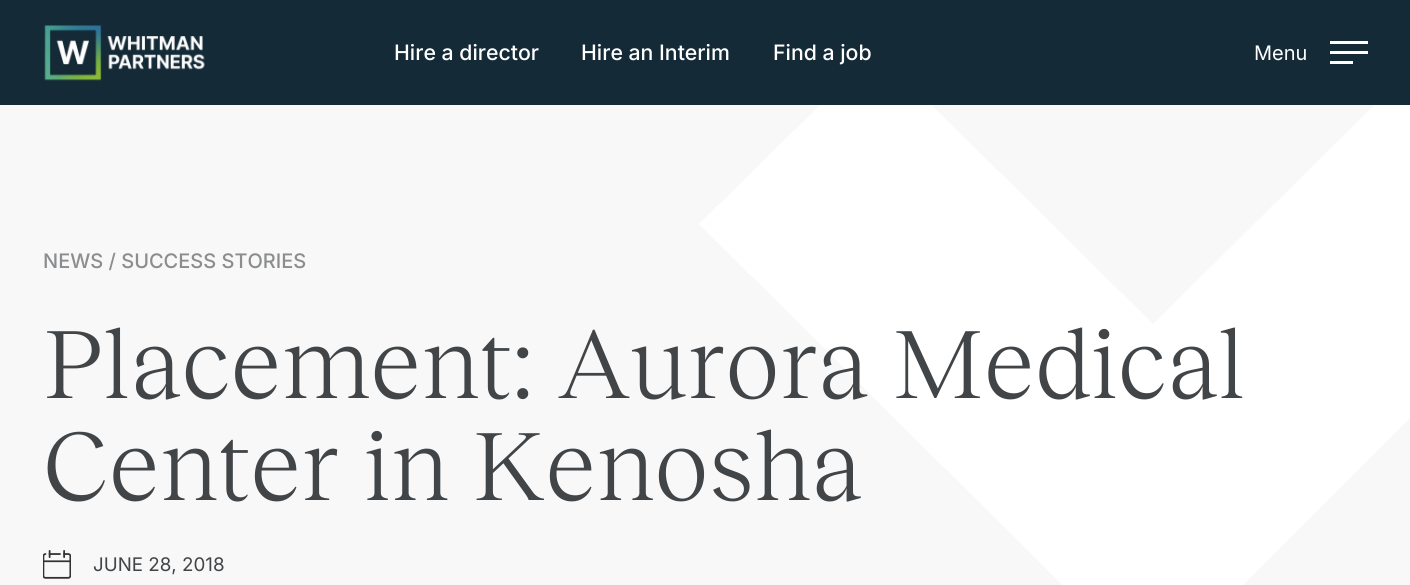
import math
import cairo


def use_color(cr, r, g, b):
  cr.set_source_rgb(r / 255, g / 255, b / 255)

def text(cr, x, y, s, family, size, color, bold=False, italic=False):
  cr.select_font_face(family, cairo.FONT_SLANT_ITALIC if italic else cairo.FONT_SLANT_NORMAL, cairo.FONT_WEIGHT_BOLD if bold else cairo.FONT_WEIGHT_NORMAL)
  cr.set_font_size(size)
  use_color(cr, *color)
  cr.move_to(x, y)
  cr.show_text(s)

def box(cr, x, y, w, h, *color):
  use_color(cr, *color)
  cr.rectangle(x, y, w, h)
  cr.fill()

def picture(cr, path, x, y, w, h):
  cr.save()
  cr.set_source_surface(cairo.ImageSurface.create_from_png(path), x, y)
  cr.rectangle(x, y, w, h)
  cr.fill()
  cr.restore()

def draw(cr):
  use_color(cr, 248, 248, 248)
  cr.paint()
  use_color(cr, 255, 255, 255)
  cr.new_path()
  cr.move_to(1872, -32)
  cr.line_to(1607, 224)
  cr.line_to(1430, 50)
  cr.line_to(1153, 324)
  cr.line_to(876, 50)
  cr.line_to(699, 224)
  cr.line_to(1153, 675)
  cr.line_to(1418, 410)
  cr.line_to(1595, 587)
  cr.line_to(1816, 360)
  cr.line_to(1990, 534)
  cr.line_to(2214, 309)
  cr.close_path()
  cr.fill()
  box(cr, 0, 0, 1410, 105, 21, 42, 55)
  picture(cr, "img_01.png", 44, 25, 161, 56)
  box(cr, 1330, 41, 38, 3, 255, 255, 255)
  box(cr, 1330, 51, 38, 3, 255, 255, 255)
  box(cr, 1330, 61, 23, 3, 255, 255, 255)
  picture(cr, "img_02.png", 43, 550, 28, 29)
  text(cr, 394, 60, "Hire a director", "Inter Medium", 21.25, (255, 255, 255))
  text(cr, 581, 60, "Hire an Interim", "Inter Medium", 21.25, (255, 255, 255))
  text(cr, 773, 60, "Find a job", "Inter Medium", 21.25, (255, 255, 255))
  text(cr, 1254, 60, "Menu", "Inter", 20, (255, 255, 255))
  text(cr, 43, 268, "NEWS / SUCCESS STORIES", "Inter Medium", 20, (139, 141, 142))
  text(cr, 43, 398, "Placement: Aurora Medical", "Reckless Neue", 100, (66, 69, 72))
  text(cr, 43, 500, "Center in Kenosha", "Reckless Neue", 100, (66, 69, 72))
  text(cr, 93, 571, "JUNE 28, 2018", "Inter", 18.75, (66, 69, 72))


surface = cairo.ImageSurface(cairo.FORMAT_RGB24, 1410, 585)
cr = cairo.Context(surface)
options = cairo.FontOptions()
options.set_hint_metrics(cairo.HINT_METRICS_OFF)
options.set_hint_style(cairo.HINT_STYLE_NONE)
cr.set_font_options(options)
cr.set_miter_limit(4)
draw(cr)
surface.write_to_png("out.png")
